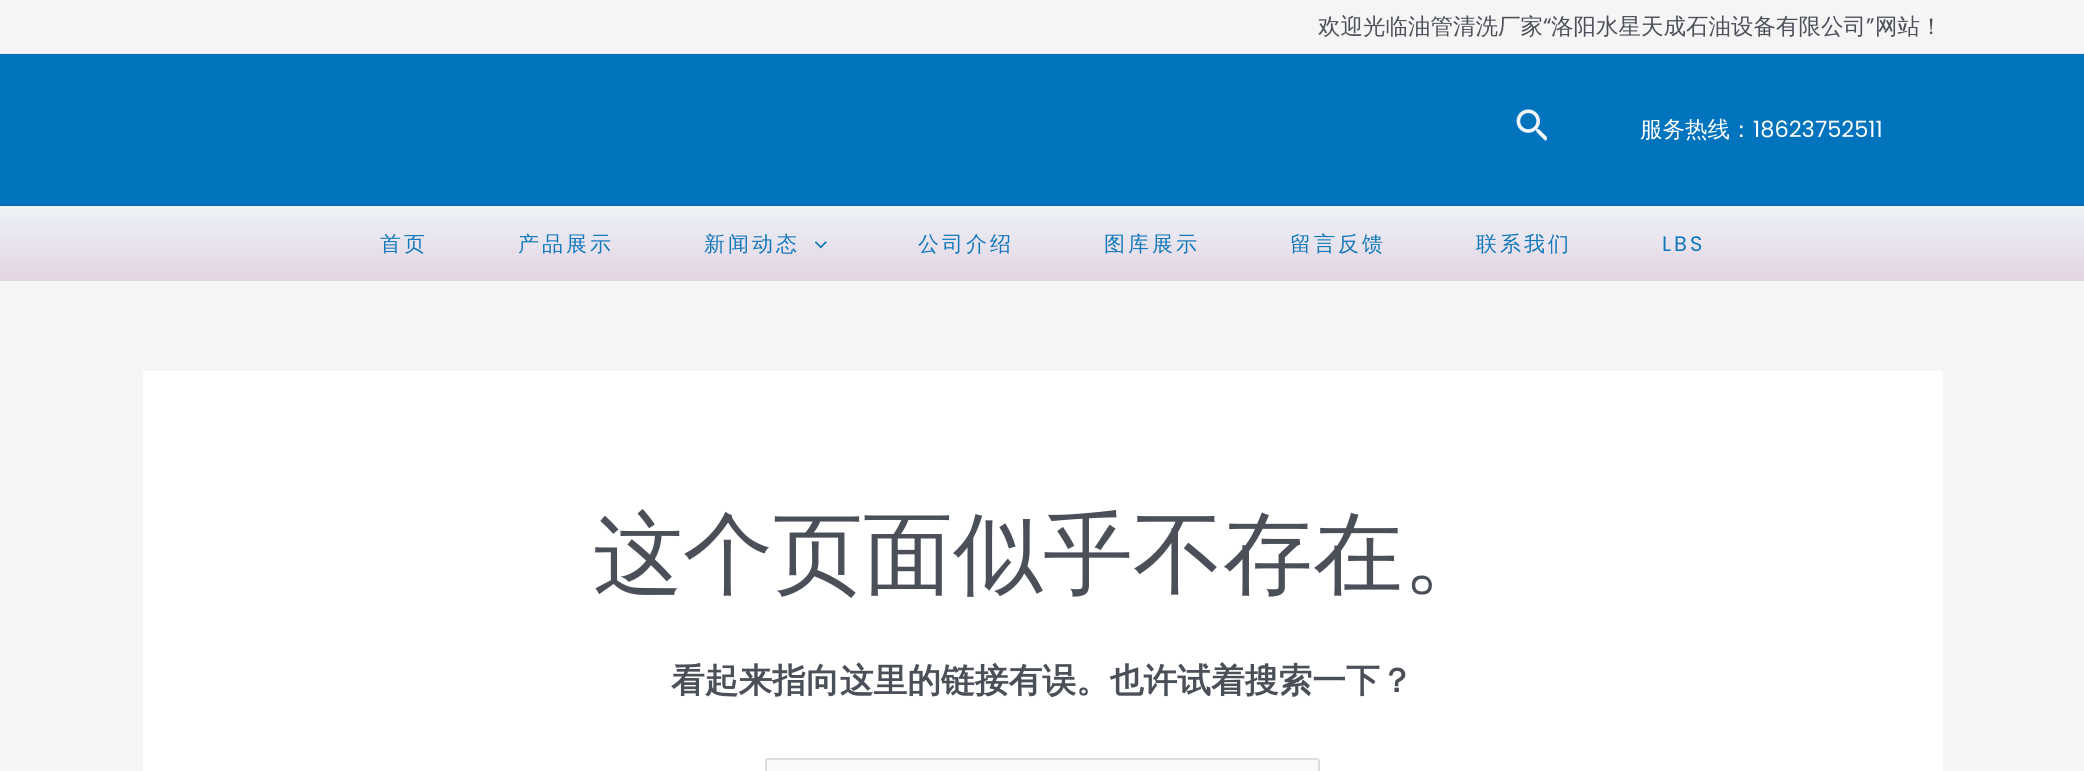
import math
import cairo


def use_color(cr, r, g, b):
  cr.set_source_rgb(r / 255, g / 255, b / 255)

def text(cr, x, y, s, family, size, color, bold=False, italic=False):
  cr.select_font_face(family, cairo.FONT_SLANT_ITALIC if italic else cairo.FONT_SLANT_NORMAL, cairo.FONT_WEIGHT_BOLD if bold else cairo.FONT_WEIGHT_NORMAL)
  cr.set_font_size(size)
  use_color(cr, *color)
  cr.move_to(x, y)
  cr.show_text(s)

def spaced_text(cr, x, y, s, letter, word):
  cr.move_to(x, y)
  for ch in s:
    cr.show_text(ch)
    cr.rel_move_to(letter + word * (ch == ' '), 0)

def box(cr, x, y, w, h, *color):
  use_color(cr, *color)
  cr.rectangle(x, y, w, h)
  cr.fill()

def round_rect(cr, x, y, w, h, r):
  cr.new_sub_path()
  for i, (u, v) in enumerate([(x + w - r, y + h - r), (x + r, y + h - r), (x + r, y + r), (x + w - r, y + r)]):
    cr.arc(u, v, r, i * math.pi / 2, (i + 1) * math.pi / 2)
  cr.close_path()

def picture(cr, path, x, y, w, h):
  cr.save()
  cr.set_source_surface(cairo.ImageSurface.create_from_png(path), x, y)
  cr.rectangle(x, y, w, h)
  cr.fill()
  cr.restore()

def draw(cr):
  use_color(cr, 245, 245, 245)
  cr.paint()
  box(cr, 0, 53, 2084, 1, 234, 234, 234)
  box(cr, 0, 54, 2084, 150, 2, 116, 190)
  box(cr, 0, 204, 2084, 2, 2, 108, 177)
  picture(cr, "img_01.png", 1516, 109, 31, 32)
  gradient = cairo.LinearGradient(1043, 205, 1043, 281)
  gradient.add_color_stop_rgba(0, 0.929, 0.953, 0.969, 1)
  gradient.add_color_stop_rgba(1, 0.89, 0.831, 0.89, 1)
  cr.set_source(gradient)
  cr.rectangle(0, 206, 2084, 75)
  cr.fill()
  picture(cr, "img_02.png", 815, 241, 12, 8)
  box(cr, 143, 371, 1800, 400, 255, 255, 255)
  use_color(cr, 250, 250, 250)
  round_rect(cr, 766, 759, 553, 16, 2)
  cr.fill_preserve()
  use_color(cr, 221, 221, 221)
  cr.stroke()
  text(cr, 1318, 34, "欢迎光临油管清洗厂家", "WenQuanYi Zen Hei Medium", 22.5, (75, 79, 88))
  text(cr, 1543, 34, "“", "Poppins", 22.5, (75, 79, 88))
  text(cr, 1551, 34, "洛阳水星天成石油设备有限公司", "WenQuanYi Zen Hei Medium", 22.5, (75, 79, 88))
  text(cr, 1866, 34, "”", "Poppins", 22.5, (75, 79, 88))
  text(cr, 1875, 34, "网站！", "WenQuanYi Zen Hei Medium", 22.5, (75, 79, 88))
  text(cr, 1640, 137, "服务热线：", "WenQuanYi Zen Hei Medium", 22.5, (255, 255, 255))
  text(cr, 1753, 137, "18623752511", "Poppins", 22.5, (255, 255, 255))
  cr.select_font_face("WenQuanYi Zen Hei Medium")
  cr.set_font_size(21)
  use_color(cr, 19, 120, 187)
  spaced_text(cr, 380, 251, "首页", 3, 0)
  spaced_text(cr, 518, 251, "产品展示", 3, 0)
  spaced_text(cr, 704, 251, "新闻动态", 3, 0)
  spaced_text(cr, 918, 251, "公司介绍", 3, 0)
  spaced_text(cr, 1104, 251, "图库展示", 3, 0)
  spaced_text(cr, 1290, 251, "留言反馈", 3, 0)
  spaced_text(cr, 1476, 251, "联系我们", 3, 0)
  cr.select_font_face("Poppins")
  spaced_text(cr, 1662, 251, "LBS", 3, 0)
  text(cr, 593, 585, "这个页面似乎不存在。", "WenQuanYi Zen Hei Medium", 90, (75, 79, 88))
  text(cr, 671, 692, "看起来指向这里的链接有误。也许试着搜索一下？", "WenQuanYi Zen Hei", 33.75, (75, 79, 88), bold=True)


surface = cairo.ImageSurface(cairo.FORMAT_RGB24, 2084, 771)
cr = cairo.Context(surface)
options = cairo.FontOptions()
options.set_hint_metrics(cairo.HINT_METRICS_OFF)
options.set_hint_style(cairo.HINT_STYLE_NONE)
cr.set_font_options(options)
cr.set_miter_limit(4)
draw(cr)
surface.write_to_png("out.png")
